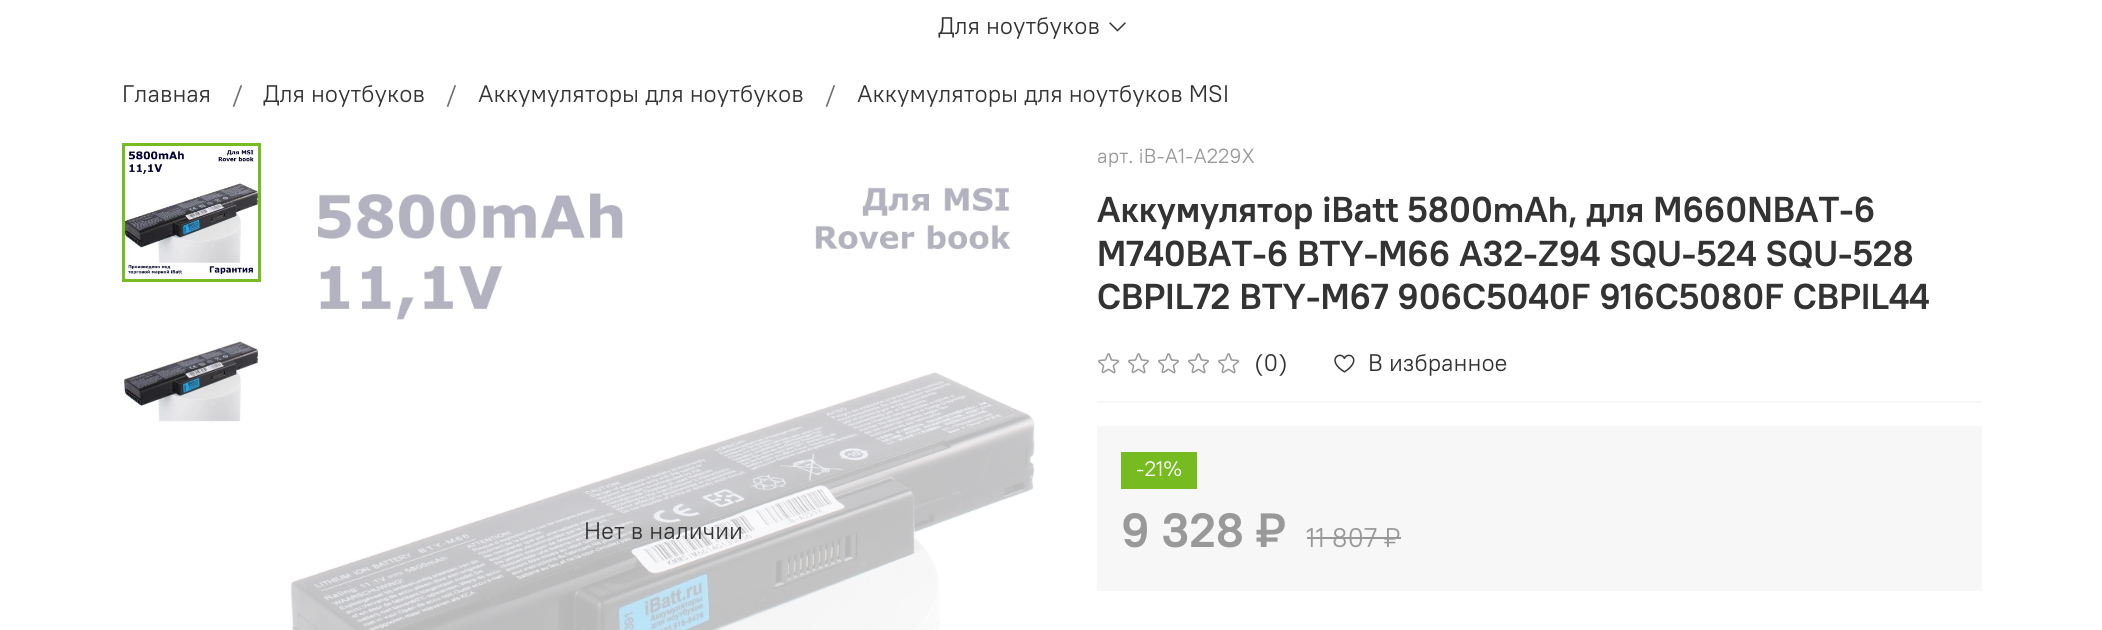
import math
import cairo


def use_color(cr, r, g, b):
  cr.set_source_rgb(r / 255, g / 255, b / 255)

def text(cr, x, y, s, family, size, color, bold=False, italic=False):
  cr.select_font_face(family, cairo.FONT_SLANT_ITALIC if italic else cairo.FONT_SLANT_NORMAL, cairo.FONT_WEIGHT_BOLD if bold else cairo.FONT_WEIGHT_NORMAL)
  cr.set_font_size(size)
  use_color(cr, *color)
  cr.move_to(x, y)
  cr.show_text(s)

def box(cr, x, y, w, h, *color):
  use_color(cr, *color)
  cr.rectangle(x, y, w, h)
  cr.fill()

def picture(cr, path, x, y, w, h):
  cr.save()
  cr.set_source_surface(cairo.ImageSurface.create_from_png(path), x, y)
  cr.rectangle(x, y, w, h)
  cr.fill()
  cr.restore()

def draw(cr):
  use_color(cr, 255, 255, 255)
  cr.paint()
  picture(cr, "img_01.png", 1109, 22, 17, 10)
  box(cr, 1097, 401, 885, 2, 247, 247, 247)
  picture(cr, "img_02.png", 1098, 353, 21, 21)
  picture(cr, "img_02.png", 1128, 353, 21, 21)
  picture(cr, "img_02.png", 1158, 353, 21, 21)
  picture(cr, "img_02.png", 1188, 353, 21, 21)
  picture(cr, "img_02.png", 1218, 353, 21, 21)
  picture(cr, "img_03.png", 1334, 354, 21, 19)
  picture(cr, "img_04.png", 125, 150, 133, 125)
  cr.rectangle(123.5, 144.5, 136, 136)
  use_color(cr, 118, 188, 33)
  cr.set_line_width(3)
  cr.stroke()
  picture(cr, "img_05.png", 124, 341, 134, 81)
  picture(cr, "img_06.png", 290, 187, 745, 443)
  box(cr, 1097, 426, 885, 165, 247, 247, 247)
  box(cr, 1121, 452, 76, 37, 118, 188, 33)
  box(cr, 1307, 537, 94, 2, 153, 153, 153)
  text(cr, 938, 34, "Для ноутбуков", "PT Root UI", 24, (51, 51, 51))
  text(cr, 122, 102, "Главная", "PT Root UI", 24, (51, 51, 51))
  text(cr, 232, 102, "/", "PT Root UI", 24, (112, 112, 112))
  text(cr, 263, 102, "Для ноутбуков", "PT Root UI", 24, (51, 51, 51))
  text(cr, 446, 102, "/", "PT Root UI", 24, (112, 112, 112))
  text(cr, 478, 102, "Аккумуляторы для ноутбуков", "PT Root UI", 24, (51, 51, 51))
  text(cr, 825, 102, "/", "PT Root UI", 24, (112, 112, 112))
  text(cr, 857, 102, "Аккумуляторы для ноутбуков MSI", "PT Root UI", 24, (51, 51, 51))
  text(cr, 1097, 163, "арт. iB-A1-A229X", "PT Root UI", 20.5, (153, 153, 153))
  text(cr, 1097, 222, "Аккумулятор iBatt 5800mAh, для M660NBAT-6", "PT Root UI", 36, (51, 51, 51), bold=True)
  text(cr, 1097, 266, "M740BAT-6 BTY-M66 A32-Z94 SQU-524 SQU-528", "PT Root UI", 36, (51, 51, 51), bold=True)
  text(cr, 1097, 309, "CBPIL72 BTY-M67 906C5040F 916C5080F CBPIL44", "PT Root UI", 36, (51, 51, 51), bold=True)
  text(cr, 1254, 371, "(0)", "PT Root UI", 24, (51, 51, 51))
  text(cr, 1368, 371, "В избранное", "PT Root UI", 24, (51, 51, 51))
  text(cr, 584, 539, "Нет в наличии", "PT Root UI", 24, (51, 51, 51))
  text(cr, 1136, 476, "-21%", "PT Root UI", 21, (255, 255, 255))
  text(cr, 1121, 547, "9 328 ₽", "PT Root UI", 48, (153, 153, 153), bold=True)
  text(cr, 1306, 547, "11 807 ₽", "PT Root UI", 27, (153, 153, 153))


surface = cairo.ImageSurface(cairo.FORMAT_RGB24, 2102, 630)
cr = cairo.Context(surface)
options = cairo.FontOptions()
options.set_hint_metrics(cairo.HINT_METRICS_OFF)
options.set_hint_style(cairo.HINT_STYLE_NONE)
cr.set_font_options(options)
cr.set_miter_limit(4)
draw(cr)
surface.write_to_png("out.png")
